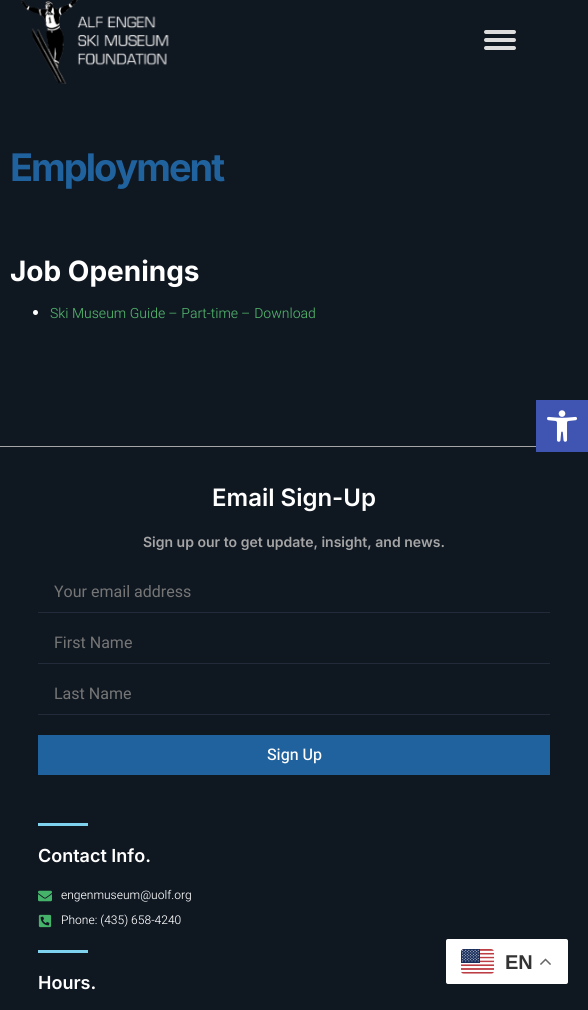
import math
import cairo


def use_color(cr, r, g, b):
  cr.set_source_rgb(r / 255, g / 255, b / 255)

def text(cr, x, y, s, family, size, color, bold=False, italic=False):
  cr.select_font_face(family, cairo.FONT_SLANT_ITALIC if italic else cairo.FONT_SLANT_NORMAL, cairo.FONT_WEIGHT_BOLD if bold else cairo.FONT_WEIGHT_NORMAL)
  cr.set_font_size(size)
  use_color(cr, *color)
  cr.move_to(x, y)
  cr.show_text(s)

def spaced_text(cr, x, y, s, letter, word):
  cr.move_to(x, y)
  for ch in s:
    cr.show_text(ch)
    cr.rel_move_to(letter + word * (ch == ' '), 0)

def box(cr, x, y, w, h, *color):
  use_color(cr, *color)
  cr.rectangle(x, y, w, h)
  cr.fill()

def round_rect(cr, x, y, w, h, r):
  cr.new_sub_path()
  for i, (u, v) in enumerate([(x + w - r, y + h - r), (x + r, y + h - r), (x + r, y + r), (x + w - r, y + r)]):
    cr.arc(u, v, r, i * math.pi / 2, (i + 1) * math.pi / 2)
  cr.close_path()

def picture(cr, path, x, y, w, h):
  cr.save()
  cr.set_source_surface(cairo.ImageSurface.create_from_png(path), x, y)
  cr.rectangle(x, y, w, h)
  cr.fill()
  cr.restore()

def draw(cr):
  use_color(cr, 15, 23, 33)
  cr.paint()
  picture(cr, "img_01.png", 21, 0, 148, 84)
  use_color(cr, 221, 221, 221)
  round_rect(cr, 484, 30, 32, 4, 2)
  cr.fill()
  round_rect(cr, 484, 38, 32, 4, 2)
  cr.fill()
  round_rect(cr, 484, 46, 32, 4, 2)
  cr.fill()
  use_color(cr, 255, 255, 255)
  cr.arc(35.5, 312.5, 2.5, 0, 2 * math.pi)
  cr.fill()
  box(cr, 536, 400, 52, 52, 64, 84, 178)
  picture(cr, "img_02.png", 547, 410, 30, 32)
  box(cr, 0, 446, 536, 1, 165, 165, 165)
  box(cr, 38, 612, 512, 1, 33, 43, 57)
  box(cr, 38, 663, 512, 1, 33, 43, 57)
  box(cr, 38, 714, 512, 1, 33, 43, 57)
  box(cr, 38, 735, 512, 40, 32, 98, 158)
  box(cr, 38, 823, 50, 3, 127, 210, 237)
  picture(cr, "img_03.png", 38, 890, 14, 12)
  picture(cr, "img_04.png", 38, 914, 14, 14)
  box(cr, 38, 950, 50, 3, 127, 210, 237)
  use_color(cr, 255, 255, 255)
  round_rect(cr, 446, 939, 122, 45, 2)
  cr.fill()
  picture(cr, "img_05.png", 461, 949, 33, 25)
  picture(cr, "img_06.png", 540, 958, 11, 7)
  cr.select_font_face("Inter", cairo.FONT_SLANT_NORMAL, cairo.FONT_WEIGHT_BOLD)
  cr.set_font_size(38)
  use_color(cr, 32, 98, 158)
  spaced_text(cr, 10, 181, "Employment", -2, 0)
  text(cr, 10, 281, "Job Openings", "Inter", 28, (255, 255, 255), bold=True)
  text(cr, 50, 318, "Ski Museum Guide – Part-time – Download", "Heebo Light", 14, (80, 177, 106))
  text(cr, 212, 506, "Email Sign-Up", "Inter SemiBold", 24, (255, 255, 255))
  text(cr, 143, 547, "Sign up our to get update, insight, and news.", "Inter SemiBold", 14, (165, 165, 165))
  text(cr, 54, 597, "Your email address", "Heebo", 16, (117, 117, 117))
  text(cr, 54, 648, "First Name", "Heebo", 16, (117, 117, 117))
  text(cr, 54, 699, "Last Name", "Heebo", 16, (117, 117, 117))
  text(cr, 267, 760, "Sign Up", "Heebo Medium", 16, (255, 255, 255))
  text(cr, 38, 862, "Contact Info.", "Inter SemiBold", 18, (255, 255, 255))
  text(cr, 61, 899, "engenmuseum@uolf.org", "Heebo Light", 12, (255, 255, 255))
  text(cr, 61, 924, "Phone: (435) 658-4240", "Heebo Light", 12, (255, 255, 255))
  text(cr, 38, 989, "Hours.", "Inter SemiBold", 18, (255, 255, 255))
  text(cr, 505, 969, "EN", "Liberation Sans", 20, (51, 51, 51), bold=True)


surface = cairo.ImageSurface(cairo.FORMAT_RGB24, 588, 1010)
cr = cairo.Context(surface)
options = cairo.FontOptions()
options.set_hint_metrics(cairo.HINT_METRICS_OFF)
options.set_hint_style(cairo.HINT_STYLE_NONE)
cr.set_font_options(options)
cr.set_miter_limit(4)
draw(cr)
surface.write_to_png("out.png")
